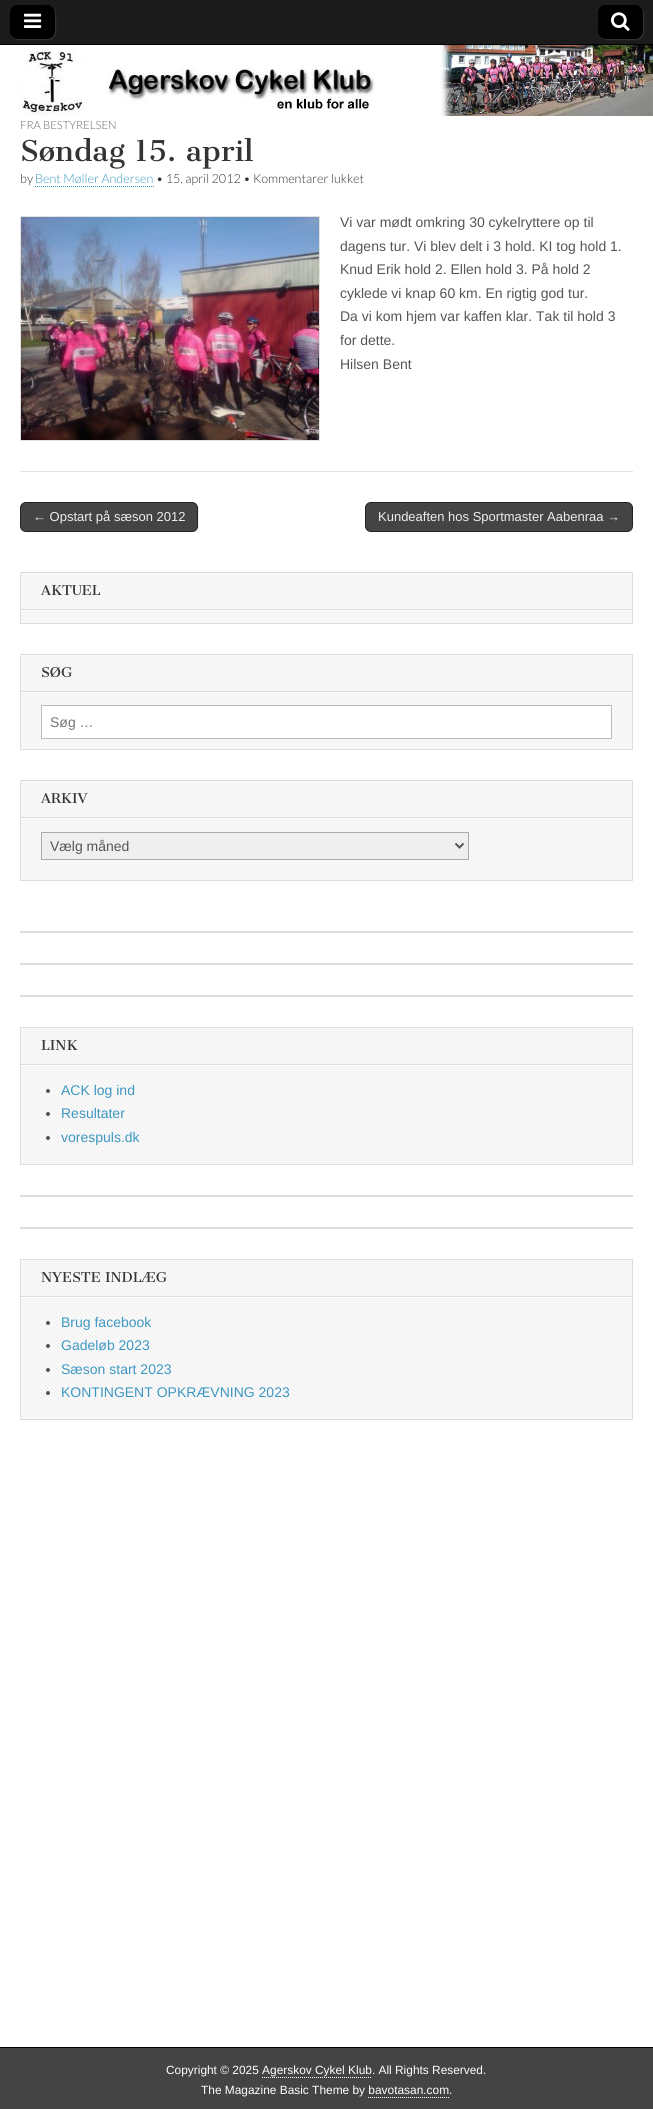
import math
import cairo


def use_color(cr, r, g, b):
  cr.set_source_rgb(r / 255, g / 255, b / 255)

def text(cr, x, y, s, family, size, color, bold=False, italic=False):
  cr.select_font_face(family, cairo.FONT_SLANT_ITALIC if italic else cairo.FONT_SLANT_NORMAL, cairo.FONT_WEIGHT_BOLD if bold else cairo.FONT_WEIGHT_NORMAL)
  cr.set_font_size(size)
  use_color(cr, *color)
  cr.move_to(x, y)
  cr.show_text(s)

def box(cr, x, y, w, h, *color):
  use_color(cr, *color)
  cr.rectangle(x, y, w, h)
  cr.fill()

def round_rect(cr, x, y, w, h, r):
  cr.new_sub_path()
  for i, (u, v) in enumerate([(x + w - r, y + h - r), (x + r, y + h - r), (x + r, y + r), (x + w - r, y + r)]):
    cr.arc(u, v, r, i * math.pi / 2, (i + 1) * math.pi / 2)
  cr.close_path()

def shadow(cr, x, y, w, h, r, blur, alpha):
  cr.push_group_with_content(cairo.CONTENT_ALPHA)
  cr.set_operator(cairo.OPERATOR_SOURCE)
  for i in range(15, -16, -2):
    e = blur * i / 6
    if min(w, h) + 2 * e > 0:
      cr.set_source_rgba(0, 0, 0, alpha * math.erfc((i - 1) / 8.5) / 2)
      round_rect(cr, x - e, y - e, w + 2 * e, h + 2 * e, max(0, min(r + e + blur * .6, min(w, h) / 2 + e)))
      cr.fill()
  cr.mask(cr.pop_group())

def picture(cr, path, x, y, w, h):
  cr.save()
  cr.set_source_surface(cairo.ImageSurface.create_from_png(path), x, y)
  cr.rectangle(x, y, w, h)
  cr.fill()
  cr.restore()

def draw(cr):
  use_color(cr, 255, 255, 255)
  cr.paint()
  box(cr, 0, 0, 653, 44, 27, 27, 27)
  box(cr, 0, 44, 653, 1, 0, 0, 0)
  use_color(cr, 51, 51, 51)
  shadow(cr, 11, 6, 45, 34, 8, 0.5, 1)
  use_color(cr, 0, 0, 0)
  round_rect(cr, 10, 5, 45, 34, 8)
  cr.fill()
  cr.new_path()
  cr.move_to(19, 6)
  cr.line_to(50, 6)
  cr.line_to(52, 7)
  cr.curve_to(49, 4, 46, 5, 42, 5)
  cr.line_to(32, 5)
  cr.curve_to(10, 5, 10, 3, 10, 25)
  cr.curve_to(10, 29, 9, 34, 13, 37)
  cr.curve_to(10, 33, 10, 13, 13, 9)
  cr.curve_to(14, 7, 16, 6, 19, 6)
  cr.close_path()
  cr.fill()
  picture(cr, "img_01.png", 24, 13, 18, 15)
  use_color(cr, 51, 51, 51)
  shadow(cr, 599, 6, 45, 34, 8, 0.5, 1)
  use_color(cr, 0, 0, 0)
  round_rect(cr, 598, 5, 45, 34, 8)
  cr.fill()
  cr.new_path()
  cr.move_to(607, 6)
  cr.line_to(638, 6)
  cr.line_to(640, 7)
  cr.curve_to(637, 4, 634, 5, 630, 5)
  cr.line_to(620, 5)
  cr.curve_to(598, 5, 598, 3, 598, 25)
  cr.curve_to(598, 29, 597, 34, 601, 37)
  cr.curve_to(598, 33, 598, 13, 601, 9)
  cr.curve_to(602, 7, 604, 6, 607, 6)
  cr.close_path()
  cr.fill()
  picture(cr, "img_02.png", 611, 12, 19, 19)
  picture(cr, "img_03.png", 18, 45, 635, 71)
  box(cr, 20, 471, 613, 1, 226, 226, 226)
  cr.new_path()
  cr.move_to(35, 186.5)
  cr.line_to(154, 186.5)
  use_color(cr, 61, 151, 194)
  cr.set_line_width(1)
  cr.set_dash([1, 1])
  cr.stroke()
  cr.rectangle(20.5, 216.5, 299, 224)
  use_color(cr, 226, 226, 226)
  cr.set_dash([])
  cr.stroke()
  picture(cr, "img_04.png", 21, 217, 298, 223)
  cr.save()
  cr.rectangle(20, 502, 613, 30)
  cr.clip()
  use_color(cr, 238, 238, 238)
  cr.new_path()
  cr.move_to(22, 531)
  cr.curve_to(23, 532, 25, 533, 27, 533)
  cr.line_to(193, 533)
  cr.curve_to(196, 533, 199, 530, 199, 527)
  cr.line_to(199, 509)
  cr.curve_to(199, 507, 198, 505, 197, 504)
  cr.curve_to(198, 505, 198, 507, 198, 508)
  cr.line_to(198, 526)
  cr.curve_to(198, 529, 195, 532, 192, 532)
  cr.line_to(26, 532)
  cr.curve_to(25, 532, 23, 532, 22, 531)
  cr.close_path()
  cr.fill()
  cr.restore()
  use_color(cr, 68, 68, 68)
  round_rect(cr, 20.5, 502.5, 177, 29, 5.5)
  cr.fill_preserve()
  use_color(cr, 34, 34, 34)
  cr.stroke()
  cr.save()
  cr.rectangle(20, 502, 613, 30)
  cr.clip()
  use_color(cr, 238, 238, 238)
  cr.new_path()
  cr.move_to(367, 531)
  cr.curve_to(368, 532, 370, 533, 372, 533)
  cr.line_to(628, 533)
  cr.curve_to(631, 533, 634, 530, 634, 527)
  cr.line_to(634, 509)
  cr.curve_to(634, 507, 633, 505, 632, 504)
  cr.curve_to(633, 505, 633, 507, 633, 508)
  cr.line_to(633, 526)
  cr.curve_to(633, 529, 630, 532, 627, 532)
  cr.line_to(371, 532)
  cr.curve_to(370, 532, 368, 532, 367, 531)
  cr.close_path()
  cr.fill()
  cr.restore()
  use_color(cr, 68, 68, 68)
  round_rect(cr, 365.5, 502.5, 267, 29, 5.5)
  cr.fill_preserve()
  use_color(cr, 34, 34, 34)
  cr.stroke()
  picture(cr, "img_05.png", 21, 573, 611, 50)
  cr.rectangle(20.5, 572.5, 612, 51)
  use_color(cr, 221, 221, 221)
  cr.stroke()
  box(cr, 21, 610, 611, 1, 255, 255, 255)
  box(cr, 21, 609, 611, 1, 221, 221, 221)
  picture(cr, "img_06.png", 21, 655, 611, 94)
  cr.rectangle(20.5, 654.5, 612, 95)
  cr.stroke()
  box(cr, 21, 692, 611, 1, 255, 255, 255)
  box(cr, 21, 691, 611, 1, 221, 221, 221)
  use_color(cr, 255, 255, 255)
  cr.rectangle(41.5, 705.5, 570, 33)
  cr.fill_preserve()
  use_color(cr, 187, 187, 187)
  cr.stroke()
  picture(cr, "img_07.png", 21, 781, 611, 99)
  cr.rectangle(20.5, 780.5, 612, 100)
  use_color(cr, 221, 221, 221)
  cr.stroke()
  box(cr, 21, 818, 611, 1, 255, 255, 255)
  box(cr, 21, 817, 611, 1, 221, 221, 221)
  use_color(cr, 239, 239, 239)
  cr.rectangle(41.5, 832.5, 427, 27)
  cr.fill_preserve()
  use_color(cr, 170, 170, 170)
  cr.stroke()
  cr.new_path()
  cr.move_to(455.5, 843.5)
  cr.line_to(459.5, 847.5)
  cr.line_to(463.5, 843.5)
  use_color(cr, 85, 85, 85)
  cr.set_line_width(2)
  cr.stroke()
  box(cr, 20, 931, 613, 2, 221, 221, 221)
  box(cr, 20, 963, 613, 2, 221, 221, 221)
  box(cr, 20, 995, 613, 2, 221, 221, 221)
  picture(cr, "img_08.png", 21, 1028, 611, 136)
  cr.rectangle(20.5, 1027.5, 612, 137)
  cr.set_line_width(1)
  cr.stroke()
  box(cr, 21, 1065, 611, 1, 255, 255, 255)
  box(cr, 21, 1064, 611, 1, 221, 221, 221)
  use_color(cr, 85, 85, 85)
  cr.arc(48, 1091, 2, 0, 2 * math.pi)
  cr.fill()
  cr.arc(48, 1114, 2, 0, 2 * math.pi)
  cr.fill()
  cr.arc(48, 1138, 2, 0, 2 * math.pi)
  cr.fill()
  box(cr, 20, 1195, 613, 2, 221, 221, 221)
  box(cr, 20, 1227, 613, 2, 221, 221, 221)
  picture(cr, "img_09.png", 21, 1260, 611, 159)
  cr.rectangle(20.5, 1259.5, 612, 160)
  cr.stroke()
  box(cr, 21, 1297, 611, 1, 255, 255, 255)
  box(cr, 21, 1296, 611, 1, 221, 221, 221)
  use_color(cr, 85, 85, 85)
  cr.arc(48, 1323, 2, 0, 2 * math.pi)
  cr.fill()
  cr.arc(48, 1346, 2, 0, 2 * math.pi)
  cr.fill()
  cr.arc(48, 1370, 2, 0, 2 * math.pi)
  cr.fill()
  cr.arc(48, 1393, 2, 0, 2 * math.pi)
  cr.fill()
  box(cr, 0, 2048, 653, 61, 68, 68, 68)
  box(cr, 0, 2047, 653, 1, 0, 0, 0)
  cr.new_path()
  cr.move_to(262, 2077.5)
  cr.line_to(372, 2077.5)
  use_color(cr, 255, 255, 255)
  cr.set_dash([1, 1])
  cr.stroke()
  cr.new_path()
  cr.move_to(368, 2097.5)
  cr.line_to(449, 2097.5)
  cr.stroke()
  text(cr, 20, 129, "FRA BESTYRELSEN", "Lato Light", 11.25, (102, 102, 102))
  text(cr, 20, 161, "Søndag 15. april", "Cantata One", 28, (51, 51, 51))
  text(cr, 20, 183, "by", "Lato Light", 12.6, (51, 51, 51))
  text(cr, 35, 183, "Bent Møller Andersen", "Lato Light", 12.6, (61, 151, 194))
  text(cr, 156, 183, "• 15. april 2012 • Kommentarer lukket", "Lato Light", 12.6, (51, 51, 51))
  text(cr, 340, 227, "Vi var mødt omkring 30 cykelryttere op til", "Liberation Sans", 14, (85, 85, 85))
  text(cr, 340, 251, "dagens tur. Vi blev delt i 3 hold. KI tog hold 1.", "Liberation Sans", 14, (85, 85, 85))
  text(cr, 340, 274, "Knud Erik hold 2. Ellen hold 3. På hold 2", "Liberation Sans", 14, (85, 85, 85))
  text(cr, 340, 298, "cyklede vi knap 60 km. En rigtig god tur.", "Liberation Sans", 14, (85, 85, 85))
  text(cr, 340, 321, "Da vi kom hjem var kaffen klar. Tak til hold 3", "Liberation Sans", 14, (85, 85, 85))
  text(cr, 340, 345, "for dette.", "Liberation Sans", 14, (85, 85, 85))
  text(cr, 340, 369, "Hilsen Bent", "Liberation Sans", 14, (85, 85, 85))
  text(cr, 33, 521, "← Opstart på sæson 2012", "Liberation Sans", 13, (238, 238, 238))
  text(cr, 378, 521, "Kundeaften hos Sportmaster Aabenraa →", "Liberation Sans", 13, (238, 238, 238))
  text(cr, 41, 595, "AKTUEL", "Cantata One", 13.25, (51, 51, 51))
  text(cr, 41, 677, "SØG", "Cantata One", 13.25, (51, 51, 51))
  text(cr, 50, 727, "Søg …", "Liberation Sans", 14, (117, 117, 117))
  text(cr, 41, 803, "ARKIV", "Cantata One", 13.25, (51, 51, 51))
  text(cr, 50, 851, "Vælg måned", "Liberation Sans", 14, (85, 85, 85))
  text(cr, 41, 1050, "LINK", "Cantata One", 13.25, (51, 51, 51))
  text(cr, 61, 1095, "ACK log ind", "Liberation Sans", 14, (61, 151, 194))
  text(cr, 61, 1118, "Resultater", "Liberation Sans", 14, (61, 151, 194))
  text(cr, 61, 1142, "vorespuls.dk", "Liberation Sans", 14, (61, 151, 194))
  text(cr, 41, 1282, "NYESTE INDLÆG", "Cantata One", 13.25, (51, 51, 51))
  text(cr, 61, 1327, "Brug facebook", "Liberation Sans", 14, (61, 151, 194))
  text(cr, 61, 1350, "Gadeløb 2023", "Liberation Sans", 14, (61, 151, 194))
  text(cr, 61, 1374, "Sæson start 2023", "Liberation Sans", 14, (61, 151, 194))
  text(cr, 61, 1397, "KONTINGENT OPKRÆVNING 2023", "Liberation Sans", 14, (61, 151, 194))
  text(cr, 166, 2074, "Copyright © 2025 Agerskov Cykel Klub. All Rights Reserved.", "Liberation Sans", 11.9, (255, 255, 255))
  text(cr, 201, 2094, "The Magazine Basic Theme by bavotasan.com.", "Liberation Sans", 11.9, (255, 255, 255))


surface = cairo.ImageSurface(cairo.FORMAT_RGB24, 653, 2109)
cr = cairo.Context(surface)
options = cairo.FontOptions()
options.set_hint_metrics(cairo.HINT_METRICS_OFF)
options.set_hint_style(cairo.HINT_STYLE_NONE)
cr.set_font_options(options)
cr.set_miter_limit(4)
draw(cr)
surface.write_to_png("out.png")
